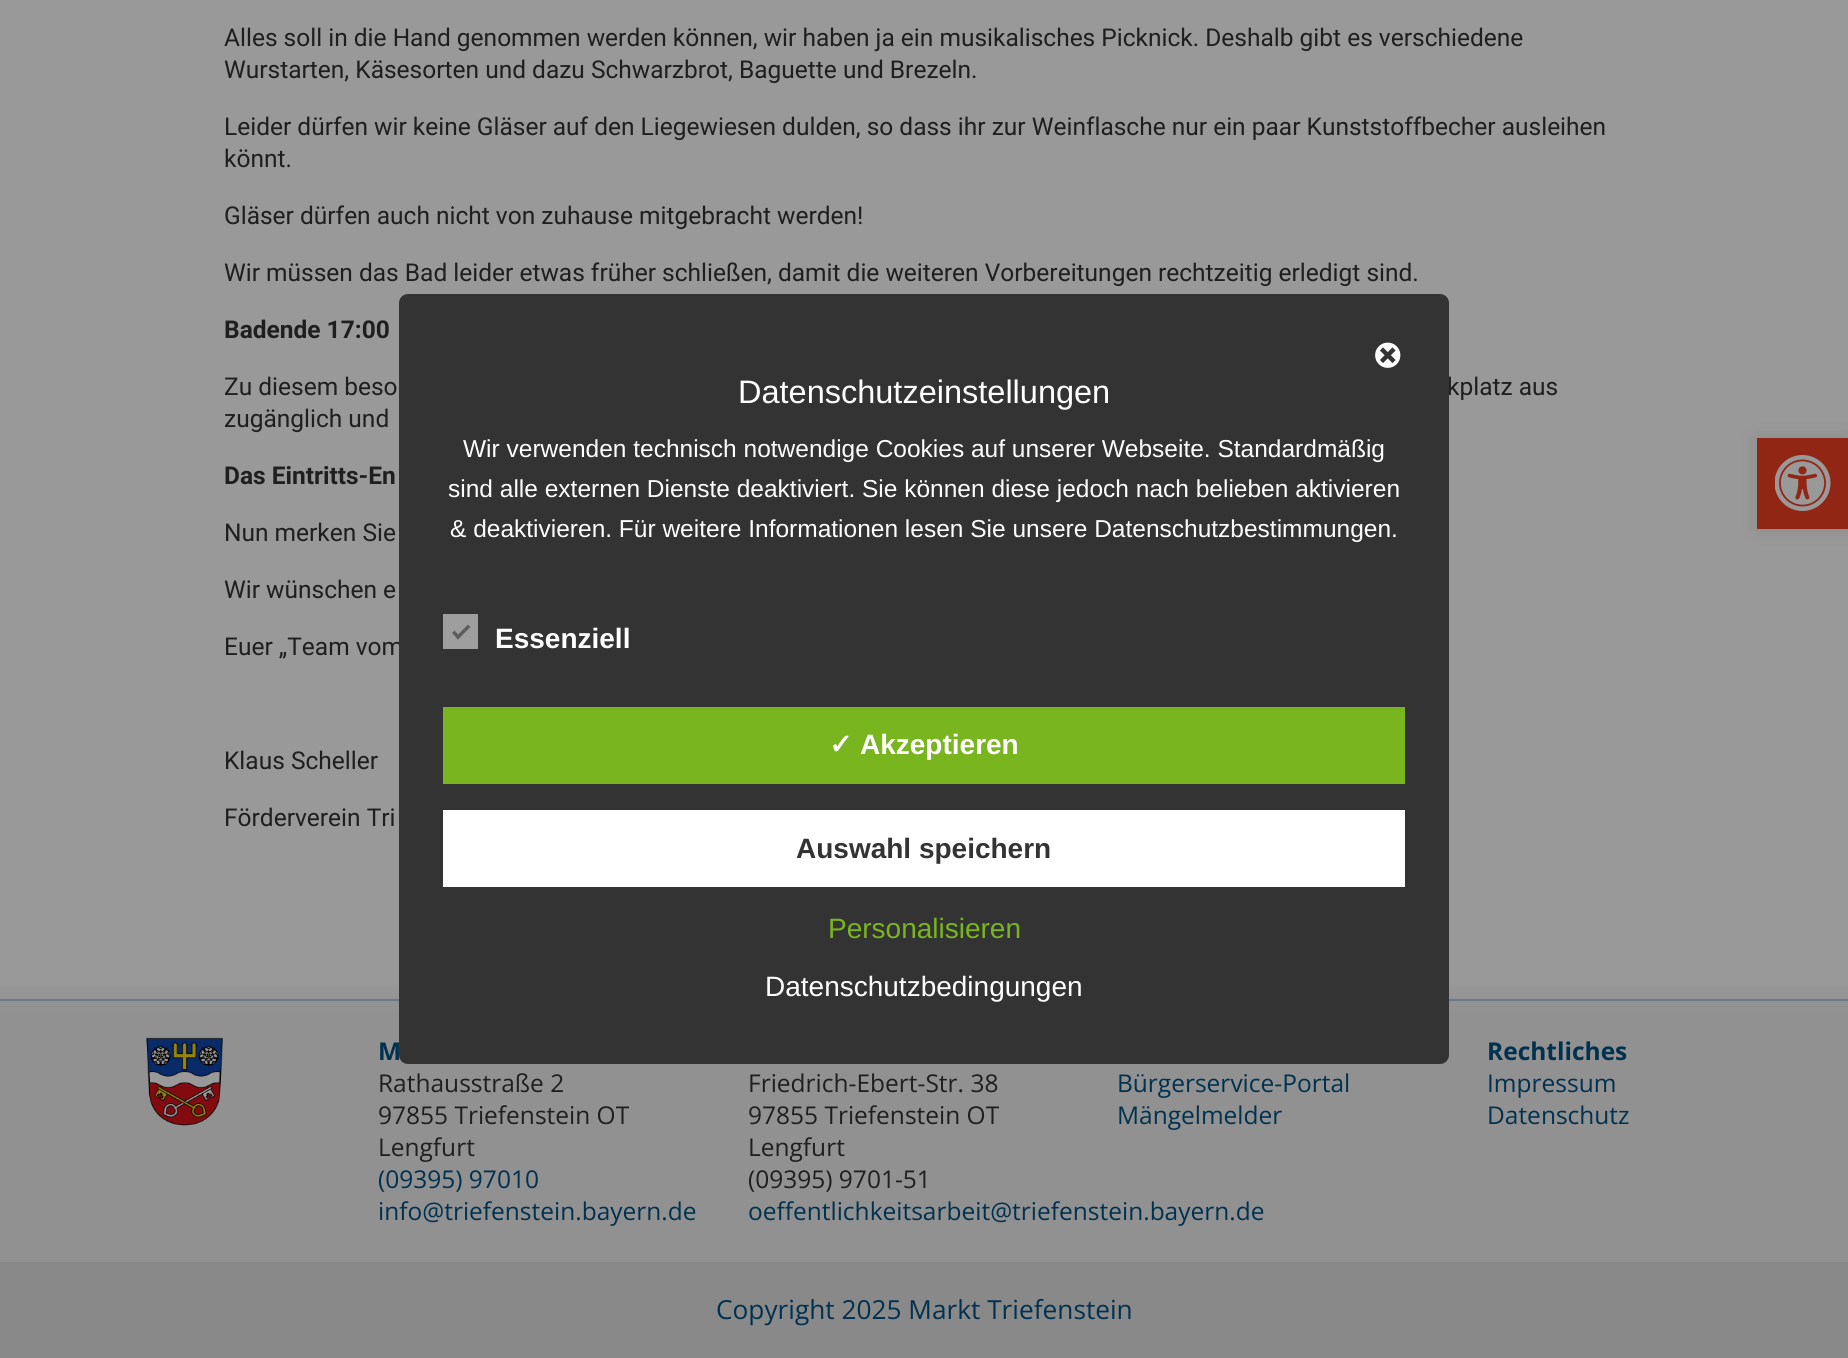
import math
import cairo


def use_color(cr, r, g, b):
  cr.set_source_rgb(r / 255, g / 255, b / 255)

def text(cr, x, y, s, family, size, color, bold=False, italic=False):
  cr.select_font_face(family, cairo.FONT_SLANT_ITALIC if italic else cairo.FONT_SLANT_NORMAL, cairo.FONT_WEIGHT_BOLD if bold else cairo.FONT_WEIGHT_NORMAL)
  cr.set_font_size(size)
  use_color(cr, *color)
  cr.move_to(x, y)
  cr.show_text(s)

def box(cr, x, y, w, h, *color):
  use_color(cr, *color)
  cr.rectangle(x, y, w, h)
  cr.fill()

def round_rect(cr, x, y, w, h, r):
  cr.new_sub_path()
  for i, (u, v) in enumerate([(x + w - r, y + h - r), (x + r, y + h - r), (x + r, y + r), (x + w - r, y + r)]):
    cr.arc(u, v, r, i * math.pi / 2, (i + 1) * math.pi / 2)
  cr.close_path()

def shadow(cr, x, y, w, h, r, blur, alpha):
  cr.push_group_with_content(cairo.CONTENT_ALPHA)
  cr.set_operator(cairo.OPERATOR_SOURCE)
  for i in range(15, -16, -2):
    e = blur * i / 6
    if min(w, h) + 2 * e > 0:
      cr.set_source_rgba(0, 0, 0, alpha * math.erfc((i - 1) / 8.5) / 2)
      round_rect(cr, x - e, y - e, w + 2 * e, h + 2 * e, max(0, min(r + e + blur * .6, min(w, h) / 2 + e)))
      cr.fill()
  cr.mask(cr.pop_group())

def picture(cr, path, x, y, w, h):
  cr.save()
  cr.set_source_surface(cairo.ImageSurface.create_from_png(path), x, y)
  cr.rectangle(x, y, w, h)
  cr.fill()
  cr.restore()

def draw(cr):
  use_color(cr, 153, 153, 153)
  cr.paint()
  use_color(cr, 0, 0, 0)
  shadow(cr, 1757, 438, 91, 91, 0, 9, 0.1)
  box(cr, 1757, 438, 91, 91, 145, 38, 21)
  picture(cr, "img_02.png", 1775, 455, 56, 56)
  gradient = cairo.LinearGradient(924, 973, 924, 1027)
  gradient.add_color_stop_rgba(0, 0.6, 0.6, 0.6, 1)
  gradient.add_color_stop_rgba(0.74, 0.569, 0.569, 0.569, 1)
  cr.set_source(gradient)
  cr.rectangle(0, 985, 1848, 42)
  cr.fill()
  box(cr, 0, 999, 1848, 2, 106, 122, 131)
  box(cr, 0, 1027, 1848, 235, 145, 145, 145)
  picture(cr, "img_03.png", 146, 1037, 77, 89)
  box(cr, 0, 1262, 1848, 96, 137, 137, 137)
  text(cr, 224, 46, "Alles soll in die Hand genommen werden können, wir haben ja ein musikalisches Picknick. Deshalb gibt es verschiedene", "Roboto", 24.5, (31, 31, 31))
  text(cr, 224, 78, "Wurstarten, Käsesorten und dazu Schwarzbrot, Baguette und Brezeln.", "Roboto", 24.5, (31, 31, 31))
  text(cr, 224, 135, "Leider dürfen wir keine Gläser auf den Liegewiesen dulden, so dass ihr zur Weinflasche nur ein paar Kunststoffbecher ausleihen", "Roboto", 24.5, (31, 31, 31))
  text(cr, 224, 167, "könnt.", "Roboto", 24.5, (31, 31, 31))
  text(cr, 224, 224, "Gläser dürfen auch nicht von zuhause mitgebracht werden!", "Roboto", 24.5, (31, 31, 31))
  text(cr, 224, 281, "Wir müssen das Bad leider etwas früher schließen, damit die weiteren Vorbereitungen rechtzeitig erledigt sind.", "Roboto", 24.5, (31, 31, 31))
  text(cr, 224, 338, "Badende 17:00", "Roboto", 24.5, (31, 31, 31), bold=True)
  text(cr, 224, 395, "Zu diesem beso", "Roboto", 24.5, (31, 31, 31))
  text(cr, 1447, 395, "kplatz aus", "Roboto", 24.5, (31, 31, 31))
  text(cr, 224, 427, "zugänglich und", "Roboto", 24.5, (31, 31, 31))
  text(cr, 224, 484, "Das Eintritts-En", "Roboto", 24.5, (31, 31, 31), bold=True)
  text(cr, 224, 541, "Nun merken Sie", "Roboto", 24.5, (31, 31, 31))
  text(cr, 224, 598, "Wir wünschen e", "Roboto", 24.5, (31, 31, 31))
  text(cr, 224, 655, "Euer „Team vom", "Roboto", 24.5, (31, 31, 31))
  text(cr, 224, 769, "Klaus Scheller", "Roboto", 24.5, (31, 31, 31))
  text(cr, 224, 826, "Förderverein Tri", "Roboto", 24.5, (31, 31, 31))
  text(cr, 378, 1060, "M", "Open Sans", 24.5, (0, 49, 79), bold=True)
  use_color(cr, 51, 51, 51)
  round_rect(cr, 399, 294, 1050, 770, 9)
  cr.fill()
  box(cr, 443, 810, 962, 77, 255, 255, 255)
  text(cr, 796, 858, "Auswahl speichern", "Liberation Sans", 28, (51, 51, 51), bold=True)
  box(cr, 443, 707, 962, 77, 121, 181, 31)
  text(cr, 860, 754, "Akzeptieren", "Liberation Sans", 28, (255, 255, 255), bold=True)
  text(cr, 829, 754, "✓", "DejaVu Sans", 28, (255, 255, 255), bold=True)
  text(cr, 765, 996, "Datenschutzbedingungen", "Liberation Sans", 28, (255, 255, 255))
  text(cr, 828, 938, "Personalisieren", "Liberation Sans", 28, (121, 181, 31))
  box(cr, 443, 614, 35, 35, 158, 158, 158)
  use_color(cr, 94, 94, 94)
  cr.new_path()
  cr.move_to(468, 624.5)
  cr.line_to(470.5, 627)
  cr.line_to(458, 639.5)
  cr.line_to(455.5, 637)
  cr.close_path()
  cr.fill()
  cr.new_path()
  cr.move_to(454.5, 630.5)
  cr.line_to(460.5, 637)
  cr.line_to(458, 639.5)
  cr.line_to(452, 633)
  cr.close_path()
  cr.fill()
  text(cr, 495, 648, "Essenziell", "Liberation Sans", 28, (255, 255, 255), bold=True)
  text(cr, 738, 403, "Datenschutzeinstellungen", "Liberation Sans", 32.5, (255, 255, 255))
  text(cr, 450, 537, "& deaktivieren. Für weitere Informationen lesen Sie unsere Datenschutzbestimmungen.", "Liberation Sans", 24.5, (255, 255, 255))
  text(cr, 448, 497, "sind alle externen Dienste deaktiviert. Sie können diese jedoch nach belieben aktivieren", "Liberation Sans", 24.5, (255, 255, 255))
  text(cr, 463, 457, "Wir verwenden technisch notwendige Cookies auf unserer Webseite. Standardmäßig", "Liberation Sans", 24.5, (255, 255, 255))
  picture(cr, "img_01.png", 1375, 342, 26, 26)
  text(cr, 378, 1092, "Rathausstraße 2", "Open Sans", 24.5, (31, 31, 31))
  text(cr, 378, 1124, "97855 Triefenstein OT", "Open Sans", 24.5, (31, 31, 31))
  text(cr, 378, 1156, "Lengfurt", "Open Sans", 24.5, (31, 31, 31))
  text(cr, 378, 1188, "(09395) 97010", "Open Sans", 24.5, (0, 49, 79))
  text(cr, 378, 1220, "info@triefenstein.bayern.de", "Open Sans", 24.5, (0, 49, 79))
  text(cr, 748, 1092, "Friedrich-Ebert-Str. 38", "Open Sans", 24.5, (31, 31, 31))
  text(cr, 748, 1124, "97855 Triefenstein OT", "Open Sans", 24.5, (31, 31, 31))
  text(cr, 748, 1156, "Lengfurt", "Open Sans", 24.5, (31, 31, 31))
  text(cr, 748, 1188, "(09395) 9701-51", "Open Sans", 24.5, (31, 31, 31))
  text(cr, 748, 1220, "oeffentlichkeitsarbeit@triefenstein.bayern.de", "Open Sans", 24.5, (0, 49, 79))
  text(cr, 1487, 1060, "Rechtliches", "Open Sans", 24.5, (0, 49, 79), bold=True)
  text(cr, 1487, 1092, "Impressum", "Open Sans", 24.5, (0, 49, 79))
  text(cr, 1487, 1124, "Datenschutz", "Open Sans", 24.5, (0, 49, 79))
  text(cr, 1117, 1092, "Bürgerservice-Portal", "Open Sans", 24.5, (0, 49, 79))
  text(cr, 1117, 1124, "Mängelmelder", "Open Sans", 24.5, (0, 49, 79))
  text(cr, 716, 1319, "Copyright 2025 Markt Triefenstein", "Open Sans", 26.25, (0, 49, 79))


surface = cairo.ImageSurface(cairo.FORMAT_RGB24, 1848, 1358)
cr = cairo.Context(surface)
options = cairo.FontOptions()
options.set_hint_metrics(cairo.HINT_METRICS_OFF)
options.set_hint_style(cairo.HINT_STYLE_NONE)
cr.set_font_options(options)
cr.set_miter_limit(4)
draw(cr)
surface.write_to_png("out.png")
